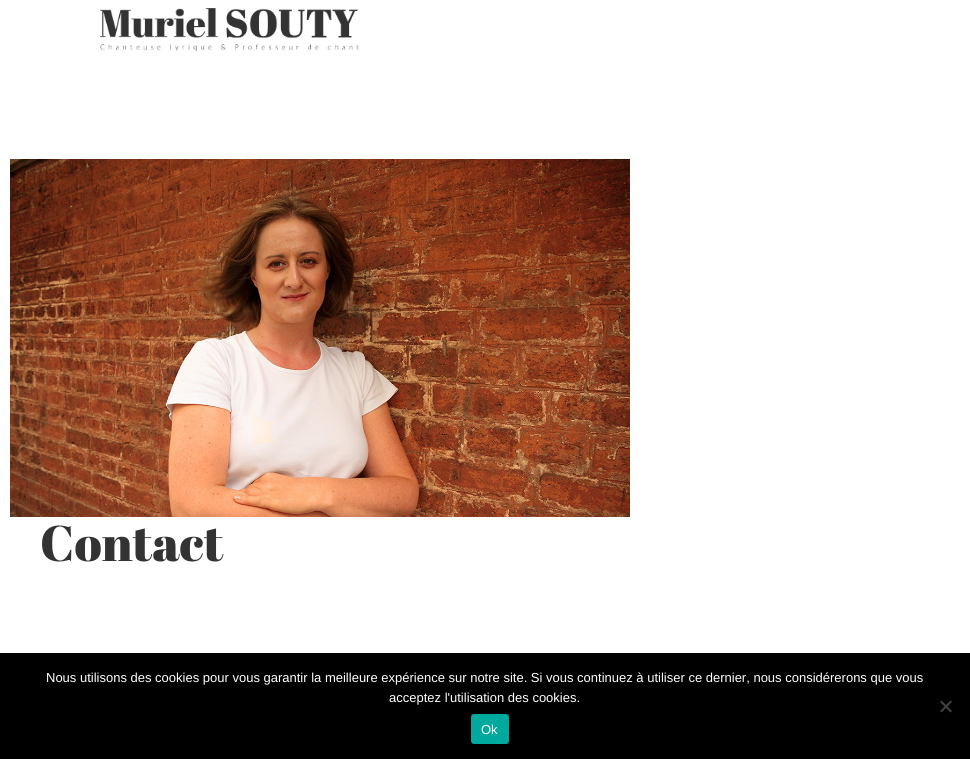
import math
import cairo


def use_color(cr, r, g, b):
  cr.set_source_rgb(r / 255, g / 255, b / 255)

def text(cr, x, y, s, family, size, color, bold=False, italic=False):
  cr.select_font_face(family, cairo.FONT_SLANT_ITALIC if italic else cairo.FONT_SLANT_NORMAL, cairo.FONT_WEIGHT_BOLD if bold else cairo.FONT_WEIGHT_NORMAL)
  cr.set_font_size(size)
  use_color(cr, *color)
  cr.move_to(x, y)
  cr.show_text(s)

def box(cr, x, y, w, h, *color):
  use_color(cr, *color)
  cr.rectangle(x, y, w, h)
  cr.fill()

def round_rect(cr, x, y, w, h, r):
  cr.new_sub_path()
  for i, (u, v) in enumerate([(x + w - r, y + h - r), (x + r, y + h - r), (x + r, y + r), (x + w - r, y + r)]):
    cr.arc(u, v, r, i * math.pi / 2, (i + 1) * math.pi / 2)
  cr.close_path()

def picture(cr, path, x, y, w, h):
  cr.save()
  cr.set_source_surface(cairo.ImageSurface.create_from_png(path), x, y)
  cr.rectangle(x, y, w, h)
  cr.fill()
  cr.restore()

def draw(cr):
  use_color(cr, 255, 255, 255)
  cr.paint()
  picture(cr, "img_01.png", 100, 8, 259, 43)
  picture(cr, "img_02.png", 10, 159, 620, 358)
  box(cr, 0, 653, 970, 106, 0, 0, 0)
  use_color(cr, 64, 64, 64)
  cr.new_path()
  cr.move_to(950.5, 700.5)
  cr.line_to(952, 702)
  cr.line_to(941.5, 712.5)
  cr.line_to(940, 711)
  cr.close_path()
  cr.fill()
  cr.new_path()
  cr.move_to(940, 702)
  cr.line_to(941.5, 700.5)
  cr.line_to(952, 711)
  cr.line_to(950.5, 712.5)
  cr.close_path()
  cr.fill()
  use_color(cr, 0, 169, 157)
  round_rect(cr, 471, 714, 38, 30, 3)
  cr.fill()
  text(cr, 40, 561, "Contact", "Abril Fatface", 50, (51, 51, 51))
  text(cr, 46, 682, "Nous utilisons des cookies pour vous garantir la meilleure expérience sur notre site. Si vous continuez à utiliser ce dernier, nous considérerons que vous", "Liberation Sans", 13, (255, 255, 255))
  text(cr, 389, 702, "acceptez l'utilisation des cookies.", "Liberation Sans", 13, (255, 255, 255))
  text(cr, 481, 734, "Ok", "Liberation Sans", 13, (255, 255, 255))


surface = cairo.ImageSurface(cairo.FORMAT_RGB24, 970, 759)
cr = cairo.Context(surface)
options = cairo.FontOptions()
options.set_hint_metrics(cairo.HINT_METRICS_OFF)
options.set_hint_style(cairo.HINT_STYLE_NONE)
cr.set_font_options(options)
cr.set_miter_limit(4)
draw(cr)
surface.write_to_png("out.png")
